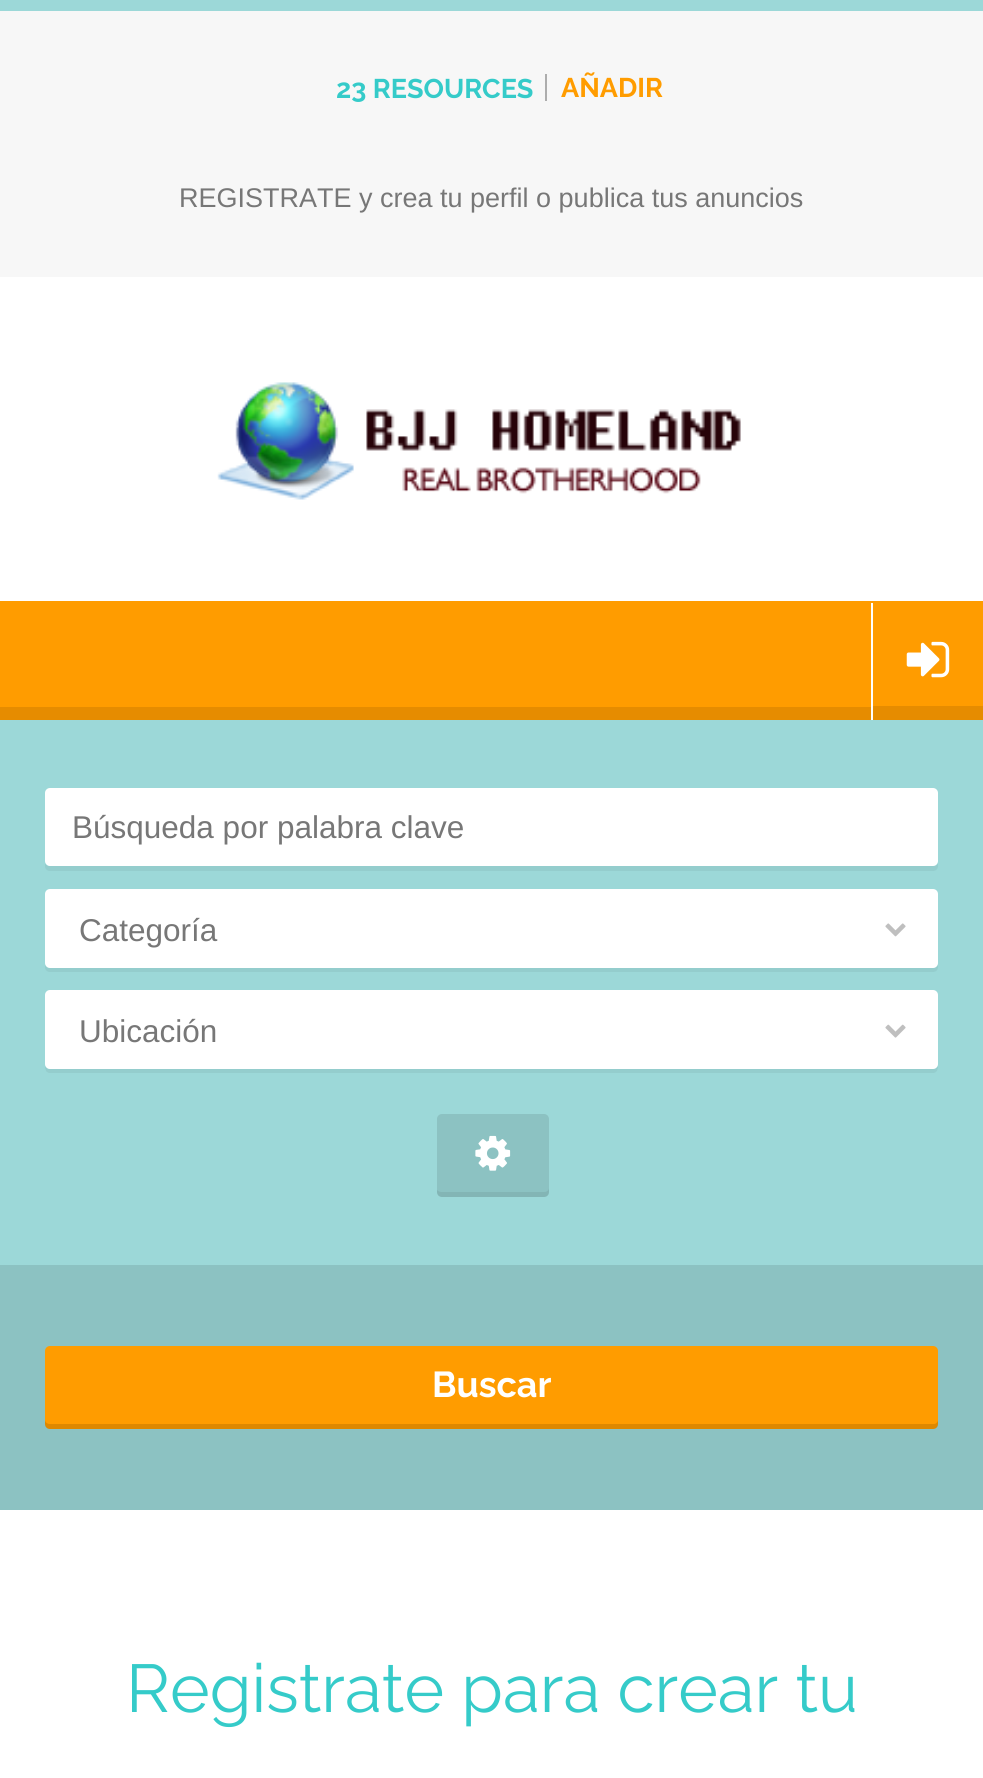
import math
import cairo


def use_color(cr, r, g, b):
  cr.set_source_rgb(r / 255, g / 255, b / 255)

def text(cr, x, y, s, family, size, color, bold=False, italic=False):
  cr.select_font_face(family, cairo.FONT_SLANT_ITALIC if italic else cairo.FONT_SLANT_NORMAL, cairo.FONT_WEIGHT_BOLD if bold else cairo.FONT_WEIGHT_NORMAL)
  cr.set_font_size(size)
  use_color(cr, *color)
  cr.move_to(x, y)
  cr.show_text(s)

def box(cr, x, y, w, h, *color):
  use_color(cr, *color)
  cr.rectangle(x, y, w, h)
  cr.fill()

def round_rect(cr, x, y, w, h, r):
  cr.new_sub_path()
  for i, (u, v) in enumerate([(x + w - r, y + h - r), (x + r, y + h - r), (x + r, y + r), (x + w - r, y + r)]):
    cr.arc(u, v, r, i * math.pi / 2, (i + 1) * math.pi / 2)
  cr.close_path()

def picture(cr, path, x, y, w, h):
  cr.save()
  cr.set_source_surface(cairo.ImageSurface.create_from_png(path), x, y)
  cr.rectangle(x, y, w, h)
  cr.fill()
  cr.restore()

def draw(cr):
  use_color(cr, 255, 255, 255)
  cr.paint()
  box(cr, 0, 11, 983, 266, 247, 247, 247)
  box(cr, 0, 0, 983, 11, 156, 216, 216)
  box(cr, 545, 74, 2, 27, 173, 173, 173)
  picture(cr, "img_01.png", 217, 382, 524, 118)
  box(cr, 0, 601, 983, 106, 255, 156, 0)
  box(cr, 0, 707, 871, 13, 230, 140, 0)
  box(cr, 871, 603, 2, 104, 255, 255, 255)
  use_color(cr, 255, 156, 0)
  cr.new_path()
  cr.move_to(878, 603)
  cr.line_to(978, 603)
  cr.curve_to(981, 603, 983, 605, 983, 608)
  cr.line_to(983, 720)
  cr.line_to(873, 720)
  cr.line_to(873, 608)
  cr.curve_to(873, 605, 875, 603, 878, 603)
  cr.close_path()
  cr.fill()
  box(cr, 873, 706, 110, 14, 230, 140, 0)
  picture(cr, "img_02.png", 906, 641, 44, 37)
  box(cr, 0, 720, 983, 545, 156, 216, 216)
  use_color(cr, 148, 205, 205)
  cr.new_path()
  cr.move_to(45, 862)
  cr.line_to(45, 866)
  cr.curve_to(45, 869, 47, 871, 50, 871)
  cr.line_to(933, 871)
  cr.curve_to(936, 871, 938, 869, 938, 866)
  cr.line_to(938, 863)
  cr.curve_to(937, 865, 936, 866, 934, 866)
  cr.line_to(50, 866)
  cr.curve_to(47, 866, 45, 864, 45, 862)
  cr.close_path()
  cr.fill()
  use_color(cr, 255, 255, 255)
  round_rect(cr, 45, 788, 893, 78, 5)
  cr.fill()
  use_color(cr, 148, 205, 205)
  cr.new_path()
  cr.move_to(45, 963)
  cr.line_to(45, 967)
  cr.curve_to(45, 970, 47, 972, 50, 972)
  cr.line_to(933, 972)
  cr.curve_to(936, 972, 938, 970, 938, 967)
  cr.line_to(938, 964)
  cr.curve_to(937, 966, 936, 968, 934, 968)
  cr.line_to(50, 968)
  cr.curve_to(47, 968, 45, 965, 45, 963)
  cr.close_path()
  cr.fill()
  use_color(cr, 255, 255, 255)
  round_rect(cr, 45, 889, 893, 79, 5)
  cr.fill()
  picture(cr, "img_03.png", 885, 923, 21, 14)
  use_color(cr, 148, 205, 205)
  cr.new_path()
  cr.move_to(45, 1064)
  cr.curve_to(45, 1068, 45, 1073, 50, 1073)
  cr.line_to(933, 1073)
  cr.curve_to(937, 1073, 938, 1069, 938, 1066)
  cr.curve_to(937, 1067, 936, 1069, 934, 1069)
  cr.line_to(50, 1069)
  cr.curve_to(47, 1069, 45, 1067, 45, 1064)
  cr.close_path()
  cr.fill()
  use_color(cr, 255, 255, 255)
  round_rect(cr, 45, 990, 893, 79, 5)
  cr.fill()
  picture(cr, "img_04.png", 885, 1024, 21, 14)
  use_color(cr, 140, 194, 194)
  round_rect(cr, 437, 1114, 112, 83, 5)
  cr.fill()
  cr.set_source_rgba(0, 0, 0, 0.07)
  cr.new_path()
  cr.move_to(437, 1190)
  cr.line_to(437, 1192)
  cr.curve_to(437, 1195, 439, 1197, 442, 1197)
  cr.line_to(544, 1197)
  cr.curve_to(547, 1197, 549, 1195, 549, 1192)
  cr.line_to(549, 1188)
  cr.curve_to(549, 1190, 547, 1192, 544, 1192)
  cr.line_to(441, 1192)
  cr.curve_to(440, 1192, 438, 1191, 437, 1190)
  cr.close_path()
  cr.fill()
  picture(cr, "img_05.png", 475, 1135, 36, 36)
  box(cr, 0, 1265, 983, 245, 140, 194, 194)
  use_color(cr, 255, 156, 0)
  round_rect(cr, 45, 1346, 893, 83, 5)
  cr.fill()
  cr.set_source_rgba(0, 0, 0, 0.07)
  cr.new_path()
  cr.move_to(45, 1420)
  cr.line_to(45, 1424)
  cr.curve_to(45, 1427, 47, 1429, 50, 1429)
  cr.line_to(933, 1429)
  cr.curve_to(936, 1429, 938, 1427, 938, 1424)
  cr.line_to(938, 1420)
  cr.curve_to(938, 1422, 936, 1424, 934, 1424)
  cr.line_to(50, 1424)
  cr.curve_to(47, 1424, 45, 1422, 45, 1420)
  cr.close_path()
  cr.fill()
  cr.new_path()
  cr.move_to(45, 1420)
  cr.line_to(45, 1424)
  cr.curve_to(45, 1427, 47, 1429, 50, 1429)
  cr.line_to(933, 1429)
  cr.curve_to(936, 1429, 938, 1427, 938, 1424)
  cr.line_to(938, 1420)
  cr.curve_to(938, 1422, 936, 1424, 934, 1424)
  cr.line_to(50, 1424)
  cr.curve_to(47, 1424, 45, 1422, 45, 1420)
  cr.close_path()
  cr.fill()
  text(cr, 336, 98, "23 RESOURCES", "Raleway", 27, (53, 203, 201), bold=True)
  text(cr, 561, 97, "AÑADIR", "Raleway", 27, (255, 156, 0), bold=True)
  text(cr, 179, 207, "REGISTRATE y crea tu perfil o publica tus anuncios", "Liberation Sans", 27, (119, 119, 119))
  text(cr, 72, 838, "Búsqueda por palabra clave", "Liberation Sans", 31.5, (119, 119, 119))
  text(cr, 79, 941, "Categoría", "Liberation Sans", 31.5, (119, 119, 119))
  text(cr, 79, 1042, "Ubicación", "Liberation Sans", 31.5, (119, 119, 119))
  text(cr, 432, 1397, "Buscar", "Raleway", 36, (255, 255, 255), bold=True)
  text(cr, 126, 1712, "Registrate para crear tu", "Raleway", 67.5, (53, 203, 201))


surface = cairo.ImageSurface(cairo.FORMAT_RGB24, 983, 1778)
cr = cairo.Context(surface)
options = cairo.FontOptions()
options.set_hint_metrics(cairo.HINT_METRICS_OFF)
options.set_hint_style(cairo.HINT_STYLE_NONE)
cr.set_font_options(options)
cr.set_miter_limit(4)
draw(cr)
surface.write_to_png("out.png")
